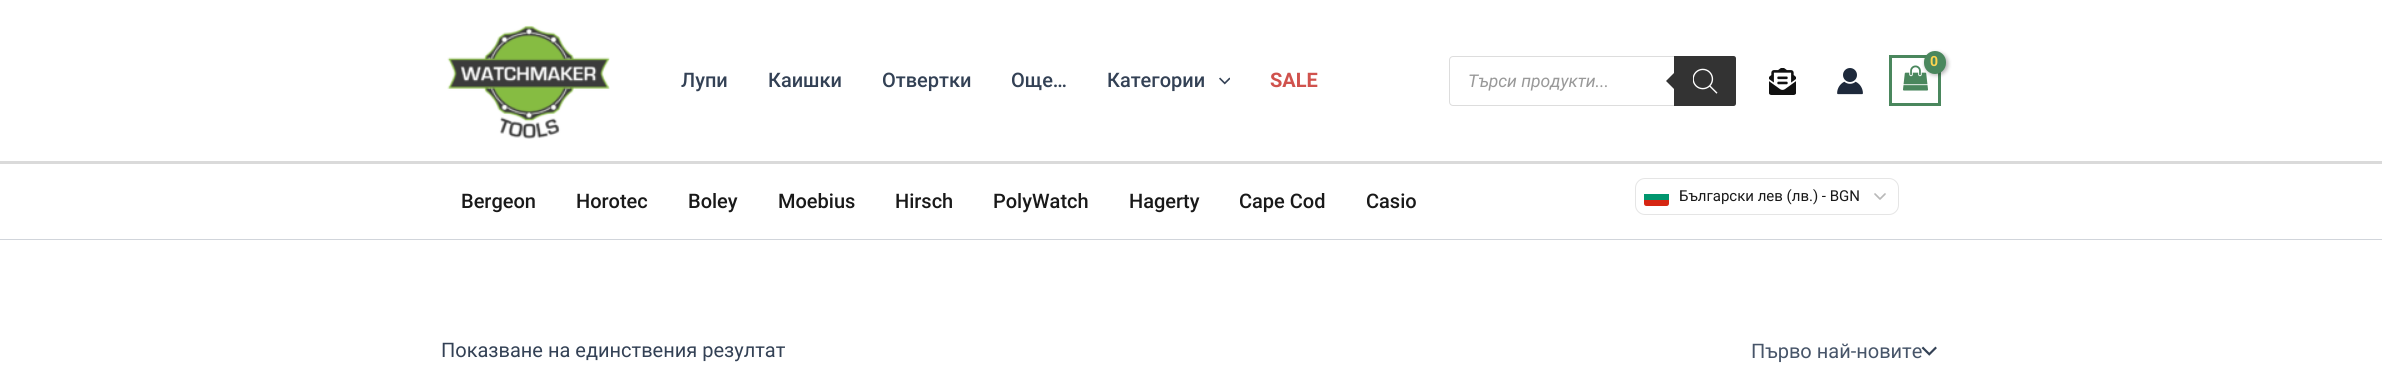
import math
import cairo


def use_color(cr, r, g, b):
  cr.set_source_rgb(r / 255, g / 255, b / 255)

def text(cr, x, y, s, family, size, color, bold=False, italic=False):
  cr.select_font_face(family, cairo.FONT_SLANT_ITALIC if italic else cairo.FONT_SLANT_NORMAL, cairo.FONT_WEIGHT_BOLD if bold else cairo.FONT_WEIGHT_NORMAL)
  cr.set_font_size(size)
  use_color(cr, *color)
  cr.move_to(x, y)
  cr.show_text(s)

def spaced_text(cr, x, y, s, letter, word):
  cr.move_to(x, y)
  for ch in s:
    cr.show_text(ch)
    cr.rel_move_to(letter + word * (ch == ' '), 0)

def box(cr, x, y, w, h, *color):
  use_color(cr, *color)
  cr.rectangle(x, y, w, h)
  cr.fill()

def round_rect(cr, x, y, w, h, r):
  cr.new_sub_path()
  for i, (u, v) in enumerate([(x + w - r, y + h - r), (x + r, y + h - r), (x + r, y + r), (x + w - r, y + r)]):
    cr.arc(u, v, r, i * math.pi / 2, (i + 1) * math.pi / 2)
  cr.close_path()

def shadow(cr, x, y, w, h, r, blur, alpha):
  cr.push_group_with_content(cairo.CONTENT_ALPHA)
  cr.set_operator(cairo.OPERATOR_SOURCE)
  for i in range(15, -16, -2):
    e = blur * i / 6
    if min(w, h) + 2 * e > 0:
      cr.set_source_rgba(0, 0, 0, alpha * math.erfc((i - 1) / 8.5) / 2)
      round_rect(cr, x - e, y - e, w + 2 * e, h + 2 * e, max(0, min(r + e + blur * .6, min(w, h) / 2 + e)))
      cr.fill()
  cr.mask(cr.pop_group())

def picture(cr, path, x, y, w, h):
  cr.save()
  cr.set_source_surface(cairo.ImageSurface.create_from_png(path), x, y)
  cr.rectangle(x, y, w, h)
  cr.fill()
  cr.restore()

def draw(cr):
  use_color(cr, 255, 255, 255)
  cr.paint()
  box(cr, 0, 161, 2382, 3, 218, 218, 218)
  picture(cr, "img_01.png", 447, 25, 163, 114)
  picture(cr, "img_02.png", 1219, 77, 11, 8)
  cr.rectangle(1890.5, 56.5, 49, 48)
  use_color(cr, 74, 135, 93)
  cr.set_line_width(3)
  cr.stroke()
  picture(cr, "img_03.png", 1903, 65, 25, 26)
  use_color(cr, 0, 0, 0)
  shadow(cr, 1925, 53, 23, 22, 11, 2, 0.3)
  use_color(cr, 74, 135, 93)
  round_rect(cr, 1924, 51, 22, 23, 11)
  cr.fill()
  round_rect(cr, 1449.5, 56.5, 286, 49, 3.5)
  use_color(cr, 221, 221, 221)
  cr.set_line_width(1)
  cr.stroke()
  use_color(cr, 51, 51, 51)
  cr.new_path()
  cr.move_to(1674, 56)
  cr.line_to(1733.5, 56)
  cr.curve_to(1735, 56, 1736, 57, 1736, 58.5)
  cr.line_to(1736, 103.5)
  cr.curve_to(1736, 105, 1735, 106, 1733.5, 106)
  cr.line_to(1674, 106)
  cr.close_path()
  cr.fill()
  cr.new_path()
  cr.move_to(1676, 71)
  cr.line_to(1676, 91)
  cr.line_to(1666, 81)
  cr.close_path()
  cr.fill()
  picture(cr, "img_04.png", 1693, 68, 25, 26)
  picture(cr, "img_05.png", 1769, 68, 27, 27)
  picture(cr, "img_06.png", 1837, 68, 26, 27)
  box(cr, 0, 239, 2382, 1, 209, 213, 219)
  round_rect(cr, 1635.5, 178.5, 263, 36, 9.5)
  use_color(cr, 229, 229, 229)
  cr.stroke()
  box(cr, 1644, 194, 25, 6, 0, 150, 110)
  use_color(cr, 214, 38, 18)
  cr.new_path()
  cr.move_to(1644, 200)
  cr.line_to(1669, 200)
  cr.line_to(1669, 203.5)
  cr.curve_to(1669, 205, 1668, 206, 1666.5, 206)
  cr.line_to(1646.5, 206)
  cr.curve_to(1645, 206, 1644, 205, 1644, 203.5)
  cr.close_path()
  cr.fill()
  cr.new_path()
  cr.move_to(1875, 194)
  cr.line_to(1880, 199)
  cr.line_to(1885, 194)
  use_color(cr, 185, 185, 185)
  cr.set_line_width(1.7)
  cr.set_line_cap(cairo.LINE_CAP_ROUND)
  cr.set_line_join(cairo.LINE_JOIN_ROUND)
  cr.stroke()
  picture(cr, "img_07.png", 1921, 346, 16, 10)
  text(cr, 681, 87, "Лупи", "Roboto Medium", 20, (51, 65, 85))
  text(cr, 768, 87, "Каишки", "Roboto Medium", 20, (51, 65, 85))
  text(cr, 882, 87, "Отвертки", "Roboto Medium", 20, (51, 65, 85))
  text(cr, 1011, 87, "Още…", "Roboto Medium", 20, (51, 65, 85))
  text(cr, 1107, 87, "Категории", "Roboto Medium", 20, (51, 65, 85))
  text(cr, 1270, 87, "SALE", "Roboto", 20, (208, 82, 77), bold=True)
  cr.set_font_size(14)
  use_color(cr, 255, 213, 79)
  spaced_text(cr, 1930, 66, "0", -1, 0)
  text(cr, 1468, 87, "Търси продукти...", "Roboto", 17.5, (153, 153, 153), italic=True)
  text(cr, 461, 208, "Bergeon", "Roboto Medium", 20, (25, 25, 25))
  text(cr, 576, 208, "Horotec", "Roboto Medium", 20, (25, 25, 25))
  text(cr, 688, 208, "Boley", "Roboto Medium", 20, (25, 25, 25))
  text(cr, 778, 208, "Moebius", "Roboto Medium", 20, (25, 25, 25))
  text(cr, 895, 208, "Hirsch", "Roboto Medium", 20, (25, 25, 25))
  text(cr, 993, 208, "PolyWatch", "Roboto Medium", 20, (25, 25, 25))
  text(cr, 1129, 208, "Hagerty", "Roboto Medium", 20, (25, 25, 25))
  text(cr, 1239, 208, "Cape Cod", "Roboto Medium", 20, (25, 25, 25))
  text(cr, 1366, 208, "Casio", "Roboto Medium", 20, (25, 25, 25))
  text(cr, 1679, 201, "Български лев (лв.) - BGN", "Roboto", 15, (25, 25, 25))
  text(cr, 441, 357, "Показване на единствения резултат", "Roboto", 20, (51, 65, 85))
  text(cr, 1751, 358, "Първо най-новите", "Roboto", 20, (71, 85, 105))


surface = cairo.ImageSurface(cairo.FORMAT_RGB24, 2382, 369)
cr = cairo.Context(surface)
options = cairo.FontOptions()
options.set_hint_metrics(cairo.HINT_METRICS_OFF)
options.set_hint_style(cairo.HINT_STYLE_NONE)
cr.set_font_options(options)
cr.set_miter_limit(4)
draw(cr)
surface.write_to_png("out.png")
